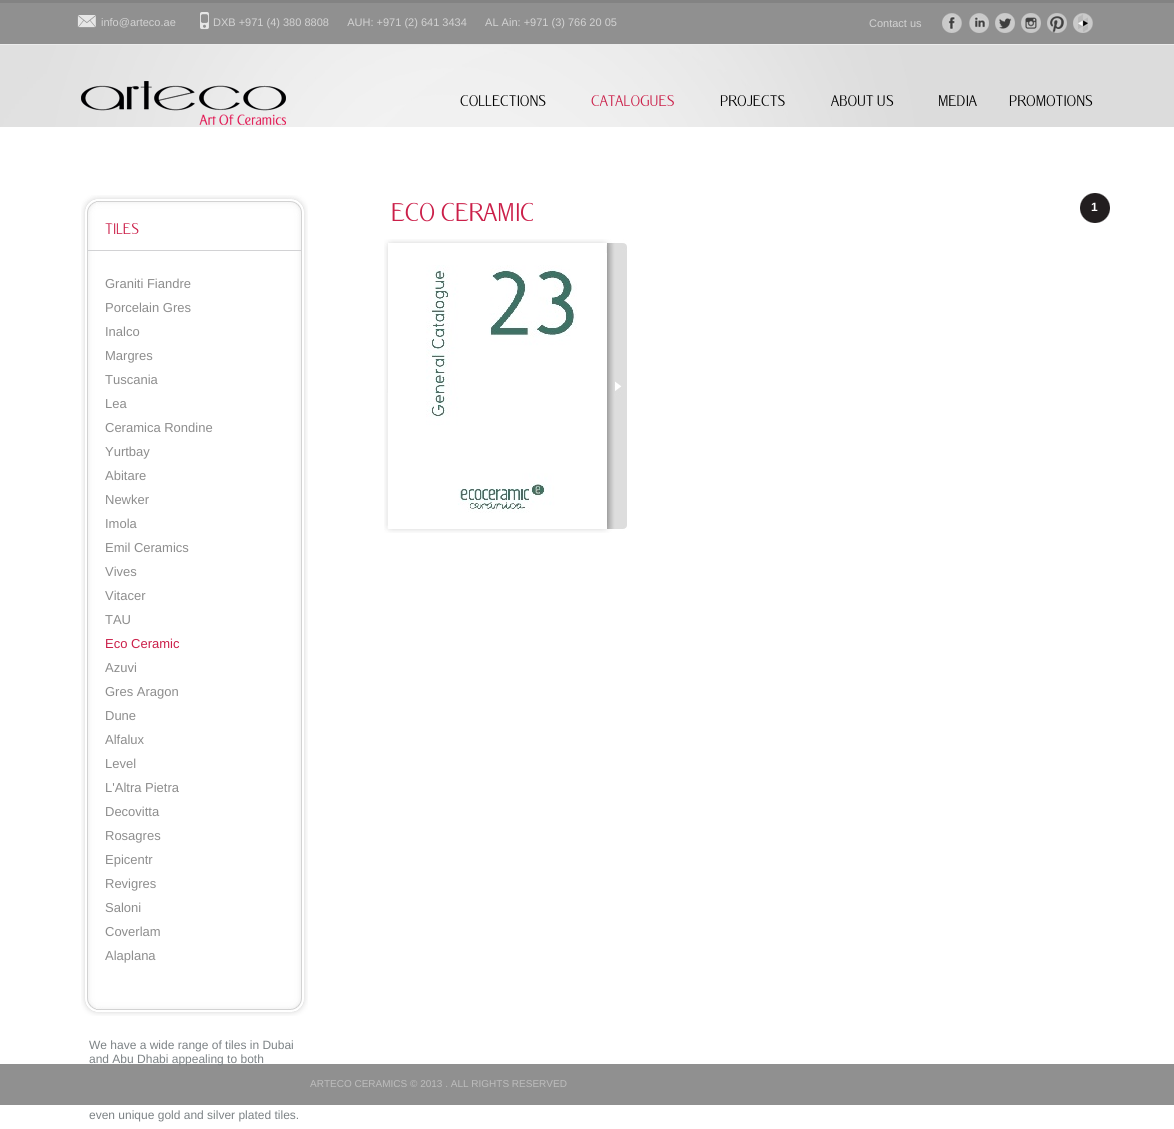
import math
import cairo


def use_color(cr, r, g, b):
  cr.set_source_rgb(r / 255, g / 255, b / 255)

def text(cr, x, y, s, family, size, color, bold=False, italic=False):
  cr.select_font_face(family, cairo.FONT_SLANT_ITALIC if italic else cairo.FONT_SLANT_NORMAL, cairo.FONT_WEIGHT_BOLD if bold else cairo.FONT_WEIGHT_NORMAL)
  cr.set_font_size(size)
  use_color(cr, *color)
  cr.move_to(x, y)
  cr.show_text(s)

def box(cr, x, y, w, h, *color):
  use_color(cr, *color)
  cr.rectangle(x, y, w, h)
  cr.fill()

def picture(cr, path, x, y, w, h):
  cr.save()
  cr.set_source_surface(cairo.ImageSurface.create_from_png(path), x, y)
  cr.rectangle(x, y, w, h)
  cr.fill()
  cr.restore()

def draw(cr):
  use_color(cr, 255, 255, 255)
  cr.paint()
  picture(cr, "img_01.png", 0, 0, 1174, 45)
  picture(cr, "img_02.png", 77, 15, 19, 13)
  picture(cr, "img_03.png", 200, 12, 9, 18)
  picture(cr, "img_04.png", 942, 13, 20, 20)
  picture(cr, "img_05.png", 969, 13, 20, 20)
  picture(cr, "img_06.png", 995, 13, 20, 20)
  picture(cr, "img_07.png", 1021, 13, 20, 20)
  picture(cr, "img_08.png", 1047, 13, 20, 20)
  picture(cr, "img_09.png", 1073, 13, 20, 20)
  picture(cr, "img_10.png", 0, 45, 1174, 82)
  picture(cr, "img_11.png", 81, 81, 205, 44)
  picture(cr, "img_12.png", 1080, 193, 30, 30)
  picture(cr, "img_13.png", 384, 239, 243, 294)
  picture(cr, "img_14.png", 426, 265, 151, 248)
  picture(cr, "img_15.png", 81, 195, 227, 56)
  picture(cr, "img_16.png", 81, 251, 227, 747)
  picture(cr, "img_17.png", 81, 998, 227, 18)
  box(cr, 0, 1064, 1174, 41, 144, 144, 144)
  text(cr, 101, 26, "info@arteco.ae", "Liberation Sans", 11, (210, 210, 210))
  text(cr, 213, 26, "DXB +971 (4) 380 8808      AUH: +971 (2) 641 3434      AL Ain: +971 (3) 766 20 05", "Liberation Sans", 11, (210, 210, 210))
  text(cr, 869, 27, "Contact us", "Liberation Sans", 11, (210, 210, 210))
  text(cr, 460, 106, "COLLECTIONS", "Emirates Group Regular", 15, (0, 0, 0))
  text(cr, 591, 106, "CATALOGUES", "Emirates Group Regular", 15, (203, 31, 73))
  text(cr, 720, 106, "PROJECTS", "Emirates Group Regular", 15, (0, 0, 0))
  text(cr, 831, 106, "ABOUT US", "Emirates Group Regular", 15, (0, 0, 0))
  text(cr, 938, 106, "MEDIA", "Emirates Group Regular", 15, (0, 0, 0))
  text(cr, 1009, 106, "PROMOTIONS", "Emirates Group Regular", 15, (0, 0, 0))
  text(cr, 391, 221, "ECO CERAMIC", "Emirates Group Regular", 25, (203, 31, 73))
  text(cr, 1091, 211, "1", "Liberation Sans", 12, (255, 255, 255), bold=True)
  text(cr, 105, 234, "TILES", "Emirates Group Regular", 15, (203, 31, 73))
  text(cr, 105, 288, "Graniti Fiandre", "Liberation Sans", 13, (141, 141, 141))
  text(cr, 105, 312, "Porcelain Gres", "Liberation Sans", 13, (141, 141, 141))
  text(cr, 105, 336, "Inalco", "Liberation Sans", 13, (141, 141, 141))
  text(cr, 105, 360, "Margres", "Liberation Sans", 13, (141, 141, 141))
  text(cr, 105, 384, "Tuscania", "Liberation Sans", 13, (141, 141, 141))
  text(cr, 105, 408, "Lea", "Liberation Sans", 13, (141, 141, 141))
  text(cr, 105, 432, "Ceramica Rondine", "Liberation Sans", 13, (141, 141, 141))
  text(cr, 105, 456, "Yurtbay", "Liberation Sans", 13, (141, 141, 141))
  text(cr, 105, 480, "Abitare", "Liberation Sans", 13, (141, 141, 141))
  text(cr, 105, 504, "Newker", "Liberation Sans", 13, (141, 141, 141))
  text(cr, 105, 528, "Imola", "Liberation Sans", 13, (141, 141, 141))
  text(cr, 105, 552, "Emil Ceramics", "Liberation Sans", 13, (141, 141, 141))
  text(cr, 105, 576, "Vives", "Liberation Sans", 13, (141, 141, 141))
  text(cr, 105, 600, "Vitacer", "Liberation Sans", 13, (141, 141, 141))
  text(cr, 105, 624, "TAU", "Liberation Sans", 13, (141, 141, 141))
  text(cr, 105, 648, "Eco Ceramic", "Liberation Sans", 13, (203, 31, 73))
  text(cr, 105, 672, "Azuvi", "Liberation Sans", 13, (141, 141, 141))
  text(cr, 105, 696, "Gres Aragon", "Liberation Sans", 13, (141, 141, 141))
  text(cr, 105, 720, "Dune", "Liberation Sans", 13, (141, 141, 141))
  text(cr, 105, 744, "Alfalux", "Liberation Sans", 13, (141, 141, 141))
  text(cr, 105, 768, "Level", "Liberation Sans", 13, (141, 141, 141))
  text(cr, 105, 792, "L'Altra Pietra", "Liberation Sans", 13, (141, 141, 141))
  text(cr, 105, 816, "Decovitta", "Liberation Sans", 13, (141, 141, 141))
  text(cr, 105, 840, "Rosagres", "Liberation Sans", 13, (141, 141, 141))
  text(cr, 105, 864, "Epicentr", "Liberation Sans", 13, (141, 141, 141))
  text(cr, 105, 888, "Revigres", "Liberation Sans", 13, (141, 141, 141))
  text(cr, 105, 912, "Saloni", "Liberation Sans", 13, (141, 141, 141))
  text(cr, 105, 936, "Coverlam", "Liberation Sans", 13, (141, 141, 141))
  text(cr, 105, 960, "Alaplana", "Liberation Sans", 13, (141, 141, 141))
  text(cr, 89, 1049, "We have a wide range of tiles in Dubai", "Liberation Sans", 12, (124, 130, 133))
  text(cr, 89, 1063, "and Abu Dhabi appealing to both", "Liberation Sans", 12, (124, 130, 133))
  text(cr, 89, 1119, "even unique gold and silver plated tiles.", "Liberation Sans", 12, (124, 130, 133))
  text(cr, 310, 1087, "ARTECO CERAMICS © 2013 . ALL RIGHTS RESERVED", "Liberation Sans", 10, (189, 189, 189))


surface = cairo.ImageSurface(cairo.FORMAT_RGB24, 1174, 1129)
cr = cairo.Context(surface)
options = cairo.FontOptions()
options.set_hint_metrics(cairo.HINT_METRICS_OFF)
options.set_hint_style(cairo.HINT_STYLE_NONE)
cr.set_font_options(options)
cr.set_miter_limit(4)
draw(cr)
surface.write_to_png("out.png")
